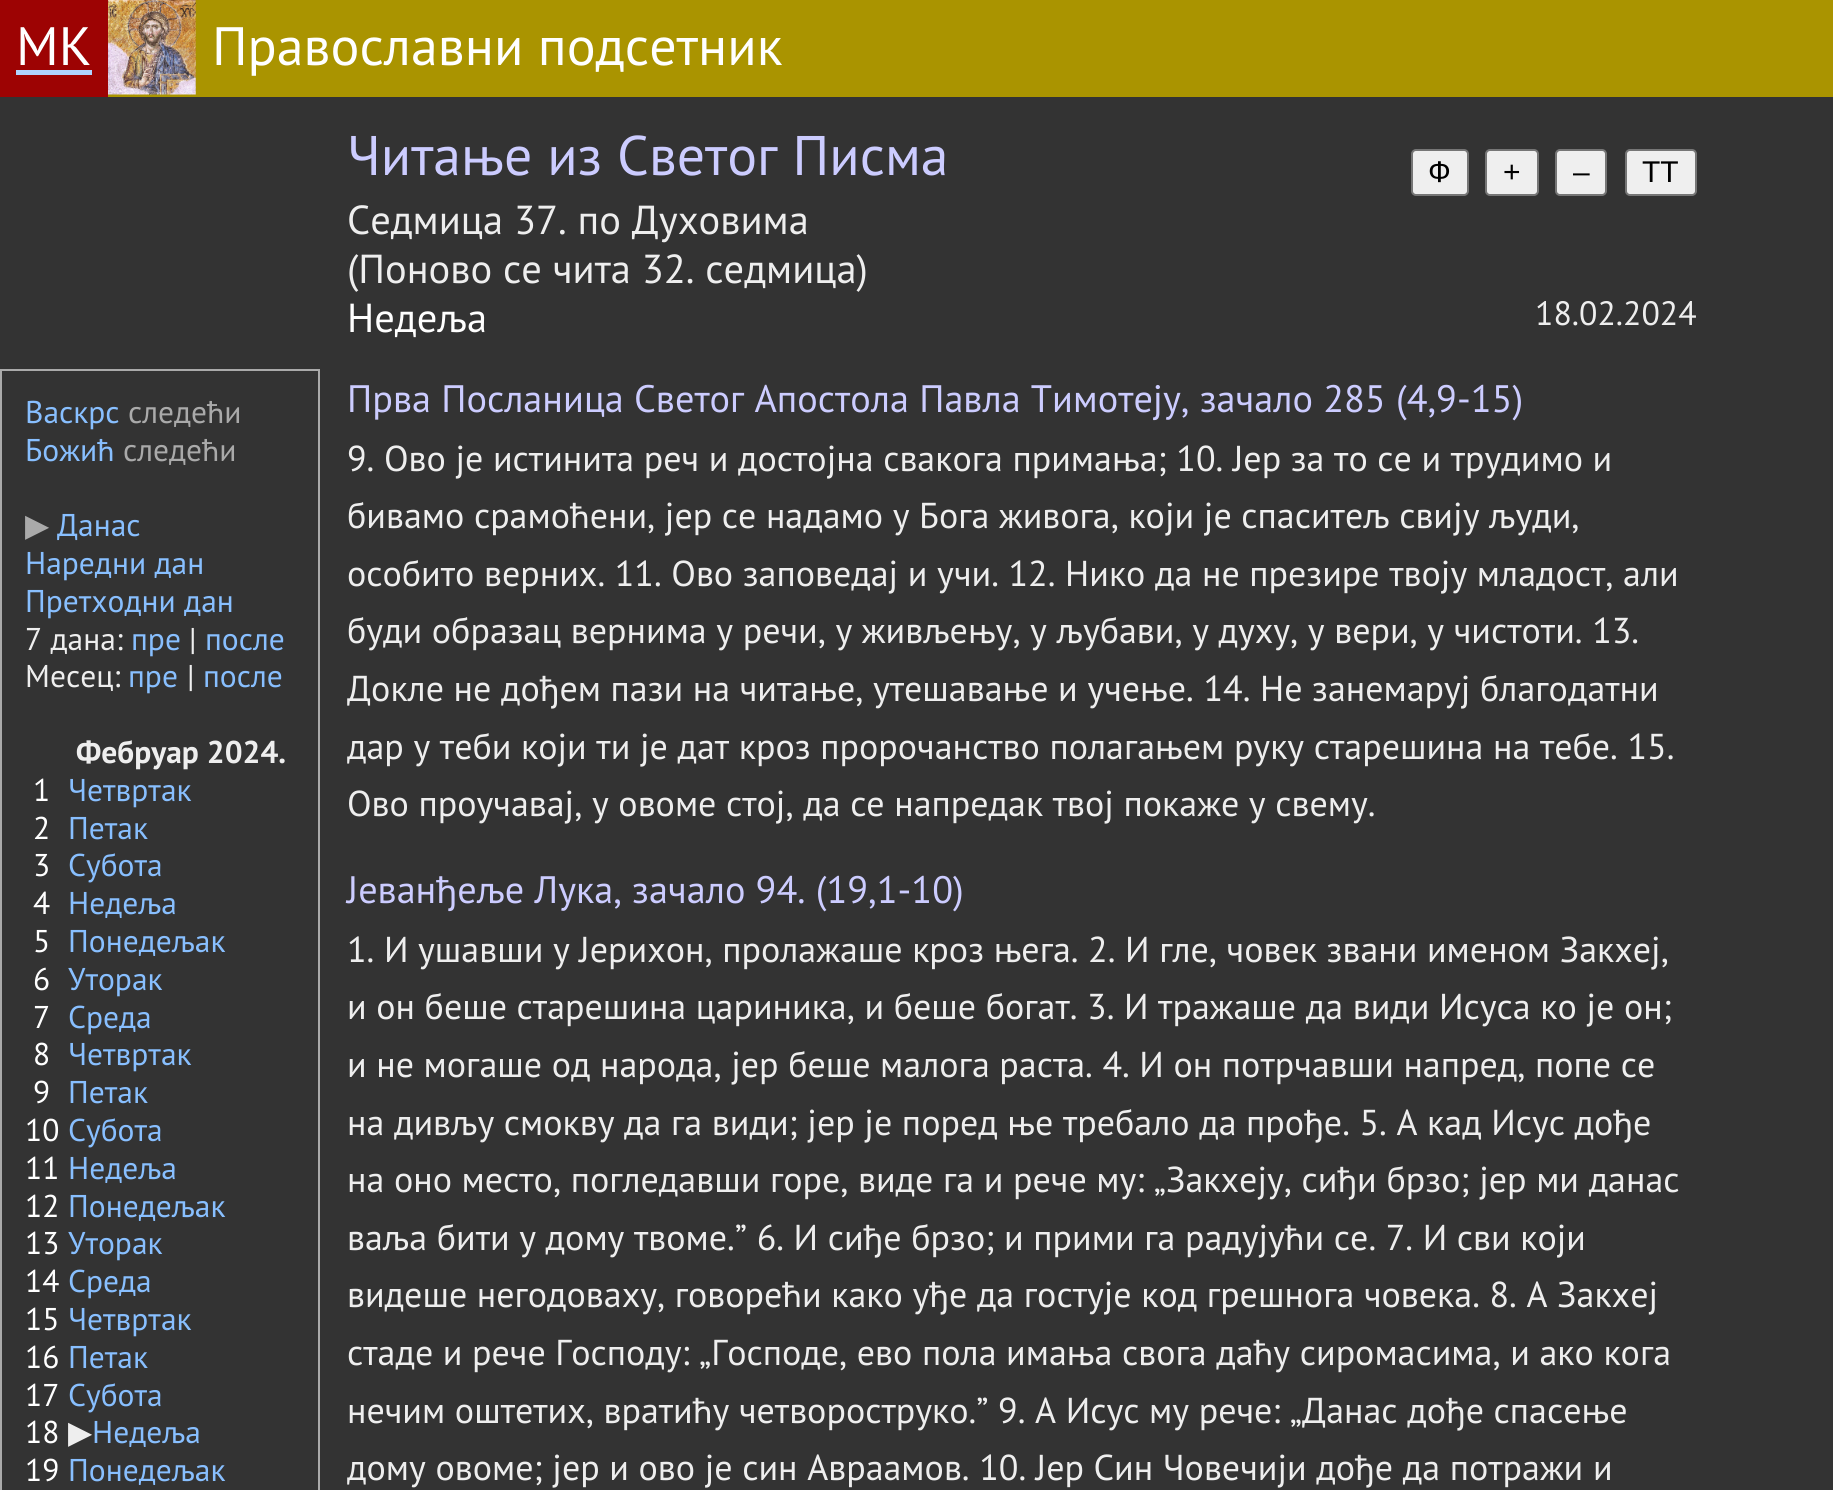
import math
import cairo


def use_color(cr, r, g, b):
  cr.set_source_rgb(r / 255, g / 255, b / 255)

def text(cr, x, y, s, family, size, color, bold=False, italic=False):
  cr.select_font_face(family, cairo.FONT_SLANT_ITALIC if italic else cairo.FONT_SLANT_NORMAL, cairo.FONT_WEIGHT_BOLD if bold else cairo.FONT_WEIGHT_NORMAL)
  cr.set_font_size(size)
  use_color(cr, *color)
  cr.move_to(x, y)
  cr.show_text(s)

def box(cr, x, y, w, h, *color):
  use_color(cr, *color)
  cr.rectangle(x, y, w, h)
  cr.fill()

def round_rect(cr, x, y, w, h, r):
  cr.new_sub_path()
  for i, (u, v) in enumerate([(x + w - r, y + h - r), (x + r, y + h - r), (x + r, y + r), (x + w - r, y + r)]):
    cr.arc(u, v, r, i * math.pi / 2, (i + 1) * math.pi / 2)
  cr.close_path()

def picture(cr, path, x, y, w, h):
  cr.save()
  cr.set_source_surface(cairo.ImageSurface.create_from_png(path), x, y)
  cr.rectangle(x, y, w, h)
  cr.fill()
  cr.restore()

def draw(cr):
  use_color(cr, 51, 51, 51)
  cr.paint()
  box(cr, 108, 0, 1725, 97, 170, 148, 0)
  box(cr, 0, 0, 108, 97, 157, 3, 3)
  box(cr, 16, 70, 76, 5, 176, 212, 255)
  picture(cr, "img_01.png", 108, 0, 88, 95)
  use_color(cr, 239, 239, 239)
  round_rect(cr, 1412, 150, 56, 45, 4)
  cr.fill_preserve()
  use_color(cr, 118, 118, 118)
  cr.stroke()
  use_color(cr, 239, 239, 239)
  round_rect(cr, 1486, 150, 52, 45, 4)
  cr.fill_preserve()
  use_color(cr, 118, 118, 118)
  cr.stroke()
  use_color(cr, 239, 239, 239)
  round_rect(cr, 1556, 150, 50, 45, 4)
  cr.fill_preserve()
  use_color(cr, 118, 118, 118)
  cr.stroke()
  use_color(cr, 239, 239, 239)
  round_rect(cr, 1626, 150, 70, 45, 4)
  cr.fill_preserve()
  use_color(cr, 118, 118, 118)
  cr.stroke()
  cr.rectangle(1, 370, 318, 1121)
  use_color(cr, 170, 170, 170)
  cr.stroke()
  text(cr, 16, 65, "МК", "PT Sans", 54, (255, 255, 255))
  text(cr, 212, 65, "Православни подсетник", "PT Sans", 54, (255, 255, 255))
  text(cr, 347, 175, "Читање из Светог Писма", "PT Sans", 55.75, (204, 204, 255))
  text(cr, 1428, 182, "Ф", "Liberation Sans", 30, (0, 0, 0))
  text(cr, 1503, 182, "+", "Liberation Sans", 30, (0, 0, 0))
  text(cr, 1573, 182, "–", "Liberation Sans", 30, (0, 0, 0))
  text(cr, 1642, 182, "TT", "Liberation Sans", 30, (0, 0, 0))
  text(cr, 347, 234, "Седмица 37. по Духовима", "PT Sans", 40.5, (238, 238, 238))
  text(cr, 347, 283, "(Поново се чита 32. седмица)", "PT Sans", 40.5, (238, 238, 238))
  text(cr, 347, 332, "Недеља", "PT Sans", 40.5, (255, 255, 255))
  text(cr, 1535, 325, "18.02.2024", "PT Sans", 33.75, (238, 238, 238))
  text(cr, 25, 423, "Васкрс", "PT Sans", 31.5, (136, 191, 255))
  text(cr, 128, 423, "следећи", "PT Sans", 31.5, (170, 170, 170))
  text(cr, 25, 461, "Божић", "PT Sans", 31.5, (136, 191, 255))
  text(cr, 123, 461, "следећи", "PT Sans", 31.5, (170, 170, 170))
  text(cr, 25, 536, "▶", "DejaVu Sans", 31.5, (170, 170, 170))
  text(cr, 57, 536, "Данас", "PT Sans", 31.5, (136, 191, 255))
  text(cr, 25, 574, "Наредни дан", "PT Sans", 31.5, (136, 191, 255))
  text(cr, 25, 612, "Претходни дан", "PT Sans", 31.5, (136, 191, 255))
  text(cr, 25, 650, "7 дана:", "PT Sans", 31.5, (238, 238, 238))
  text(cr, 131, 650, "пре", "PT Sans", 31.5, (136, 191, 255))
  text(cr, 189, 650, "|", "PT Sans", 31.5, (238, 238, 238))
  text(cr, 205, 650, "после", "PT Sans", 31.5, (136, 191, 255))
  text(cr, 25, 687, "Месец:", "PT Sans", 31.5, (238, 238, 238))
  text(cr, 128, 687, "пре", "PT Sans", 31.5, (136, 191, 255))
  text(cr, 187, 687, "|", "PT Sans", 31.5, (238, 238, 238))
  text(cr, 203, 687, "после", "PT Sans", 31.5, (136, 191, 255))
  text(cr, 76, 763, "Фебруар 2024.", "PT Sans", 31.5, (238, 238, 238), bold=True)
  text(cr, 33, 801, "1", "PT Sans", 31.5, (255, 255, 255))
  text(cr, 68, 801, "Четвртак", "PT Sans", 31.5, (136, 191, 255))
  text(cr, 33, 839, "2", "PT Sans", 31.5, (255, 255, 255))
  text(cr, 68, 839, "Петак", "PT Sans", 31.5, (136, 191, 255))
  text(cr, 33, 876, "3", "PT Sans", 31.5, (255, 255, 255))
  text(cr, 68, 876, "Субота", "PT Sans", 31.5, (136, 191, 255))
  text(cr, 33, 914, "4", "PT Sans", 31.5, (255, 255, 255))
  text(cr, 68, 914, "Недеља", "PT Sans", 31.5, (136, 191, 255))
  text(cr, 33, 952, "5", "PT Sans", 31.5, (255, 255, 255))
  text(cr, 68, 952, "Понедељак", "PT Sans", 31.5, (136, 191, 255))
  text(cr, 33, 990, "6", "PT Sans", 31.5, (255, 255, 255))
  text(cr, 68, 990, "Уторак", "PT Sans", 31.5, (136, 191, 255))
  text(cr, 33, 1028, "7", "PT Sans", 31.5, (255, 255, 255))
  text(cr, 68, 1028, "Среда", "PT Sans", 31.5, (136, 191, 255))
  text(cr, 33, 1065, "8", "PT Sans", 31.5, (255, 255, 255))
  text(cr, 68, 1065, "Четвртак", "PT Sans", 31.5, (136, 191, 255))
  text(cr, 33, 1103, "9", "PT Sans", 31.5, (255, 255, 255))
  text(cr, 68, 1103, "Петак", "PT Sans", 31.5, (136, 191, 255))
  text(cr, 25, 1141, "10", "PT Sans", 31.5, (255, 255, 255))
  text(cr, 68, 1141, "Субота", "PT Sans", 31.5, (136, 191, 255))
  text(cr, 25, 1179, "11", "PT Sans", 31.5, (255, 255, 255))
  text(cr, 68, 1179, "Недеља", "PT Sans", 31.5, (136, 191, 255))
  text(cr, 25, 1217, "12", "PT Sans", 31.5, (255, 255, 255))
  text(cr, 68, 1217, "Понедељак", "PT Sans", 31.5, (136, 191, 255))
  text(cr, 25, 1254, "13", "PT Sans", 31.5, (255, 255, 255))
  text(cr, 68, 1254, "Уторак", "PT Sans", 31.5, (136, 191, 255))
  text(cr, 25, 1292, "14", "PT Sans", 31.5, (255, 255, 255))
  text(cr, 68, 1292, "Среда", "PT Sans", 31.5, (136, 191, 255))
  text(cr, 25, 1330, "15", "PT Sans", 31.5, (255, 255, 255))
  text(cr, 68, 1330, "Четвртак", "PT Sans", 31.5, (136, 191, 255))
  text(cr, 25, 1368, "16", "PT Sans", 31.5, (255, 255, 255))
  text(cr, 68, 1368, "Петак", "PT Sans", 31.5, (136, 191, 255))
  text(cr, 25, 1406, "17", "PT Sans", 31.5, (255, 255, 255))
  text(cr, 68, 1406, "Субота", "PT Sans", 31.5, (136, 191, 255))
  text(cr, 25, 1443, "18", "PT Sans", 31.5, (255, 255, 255))
  text(cr, 68, 1443, "▶", "DejaVu Sans", 31.5, (238, 238, 238))
  text(cr, 92, 1443, "Недеља", "PT Sans", 31.5, (136, 191, 255))
  text(cr, 25, 1481, "19", "PT Sans", 31.5, (255, 255, 255))
  text(cr, 68, 1481, "Понедељак", "PT Sans", 31.5, (136, 191, 255))
  text(cr, 347, 412, "Прва Посланица Светог Апостола Павла Тимотеју, зачало 285 (4,9-15)", "PT Sans", 38.25, (204, 204, 255))
  text(cr, 347, 471, "9. Ово је истинита реч и достојна свакога примања; 10. Јер за то се и трудимо и", "PT Sans", 36, (238, 238, 238))
  text(cr, 347, 528, "бивамо срамоћени, јер се надамо у Бога живога, који је спаситељ свију људи,", "PT Sans", 36, (238, 238, 238))
  text(cr, 347, 586, "особито верних. 11. Ово заповедај и учи. 12. Нико да не презире твоју младост, али", "PT Sans", 36, (238, 238, 238))
  text(cr, 347, 643, "буди образац вернима у речи, у живљењу, у љубави, у духу, у вери, у чистоти. 13.", "PT Sans", 36, (238, 238, 238))
  text(cr, 347, 701, "Докле не дођем пази на читање, утешавање и учење. 14. Не занемаруј благодатни", "PT Sans", 36, (238, 238, 238))
  text(cr, 347, 759, "дар у теби који ти је дат кроз пророчанство полагањем руку старешина на тебе. 15.", "PT Sans", 36, (238, 238, 238))
  text(cr, 347, 816, "Ово проучавај, у овоме стој, да се напредак твој покаже у свему.", "PT Sans", 36, (238, 238, 238))
  text(cr, 347, 903, "Јеванђеље Лука, зачало 94. (19,1-10)", "PT Sans", 38.25, (204, 204, 255))
  text(cr, 347, 962, "1. И ушавши у Јерихон, пролажаше кроз њега. 2. И гле, човек звани именом Закхеј,", "PT Sans", 36, (238, 238, 238))
  text(cr, 347, 1019, "и он беше старешина цариника, и беше богат. 3. И тражаше да види Исуса ко је он;", "PT Sans", 36, (238, 238, 238))
  text(cr, 347, 1077, "и не могаше од народа, јер беше малога раста. 4. И он потрчавши напред, попе се", "PT Sans", 36, (238, 238, 238))
  text(cr, 347, 1135, "на дивљу смокву да га види; јер је поред ње требало да прође. 5. А кад Исус дође", "PT Sans", 36, (238, 238, 238))
  text(cr, 347, 1192, "на оно место, погледавши горе, виде га и рече му: „Закхеју, сиђи брзо; јер ми данас", "PT Sans", 36, (238, 238, 238))
  text(cr, 347, 1250, "ваља бити у дому твоме.” 6. И сиђе брзо; и прими га радујући се. 7. И сви који", "PT Sans", 36, (238, 238, 238))
  text(cr, 347, 1307, "видеше негодоваху, говорећи како уђе да гостује код грешнога човека. 8. А Закхеј", "PT Sans", 36, (238, 238, 238))
  text(cr, 347, 1365, "стаде и рече Господу: „Господе, ево пола имања свога даћу сиромасима, и ако кога", "PT Sans", 36, (238, 238, 238))
  text(cr, 347, 1423, "нечим оштетих, вратићу четвороструко.” 9. А Исус му рече: „Данас дође спасење", "PT Sans", 36, (238, 238, 238))
  text(cr, 347, 1480, "дому овоме; јер и ово је син Авраамов. 10. Јер Син Човечији дође да потражи и", "PT Sans", 36, (238, 238, 238))


surface = cairo.ImageSurface(cairo.FORMAT_RGB24, 1833, 1490)
cr = cairo.Context(surface)
options = cairo.FontOptions()
options.set_hint_metrics(cairo.HINT_METRICS_OFF)
options.set_hint_style(cairo.HINT_STYLE_NONE)
cr.set_font_options(options)
cr.set_miter_limit(4)
draw(cr)
surface.write_to_png("out.png")
